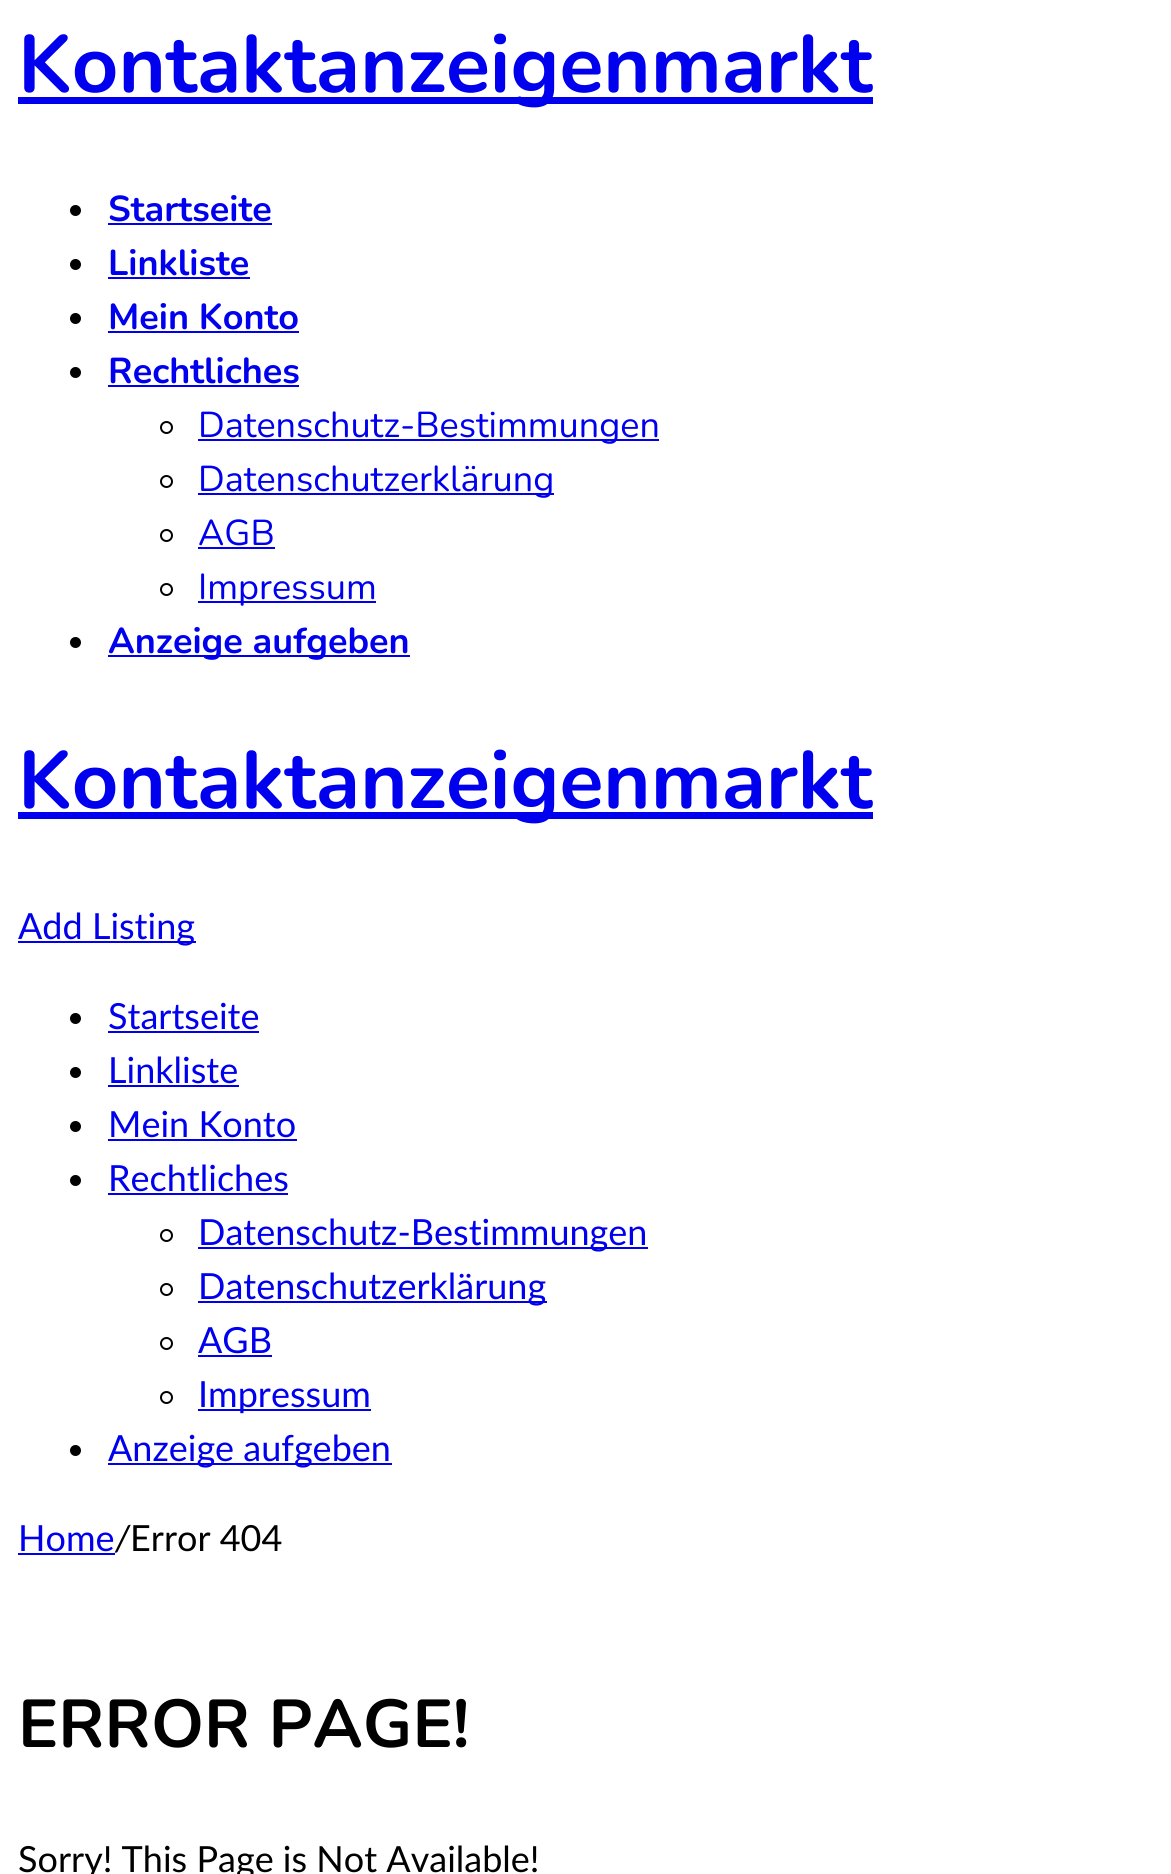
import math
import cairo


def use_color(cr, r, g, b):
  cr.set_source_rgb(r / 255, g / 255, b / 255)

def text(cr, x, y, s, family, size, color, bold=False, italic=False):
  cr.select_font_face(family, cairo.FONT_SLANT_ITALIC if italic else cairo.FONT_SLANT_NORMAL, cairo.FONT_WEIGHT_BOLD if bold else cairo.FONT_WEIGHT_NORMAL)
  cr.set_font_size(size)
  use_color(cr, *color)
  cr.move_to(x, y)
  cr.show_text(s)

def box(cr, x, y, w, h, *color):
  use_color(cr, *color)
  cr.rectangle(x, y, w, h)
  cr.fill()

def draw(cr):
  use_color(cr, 255, 255, 255)
  cr.paint()
  box(cr, 18, 97, 855, 7, 0, 0, 238)
  use_color(cr, 0, 0, 0)
  cr.arc(75.5, 210.5, 5.5, 0, 2 * math.pi)
  cr.fill()
  box(cr, 108, 223, 164, 2, 0, 0, 238)
  use_color(cr, 0, 0, 0)
  cr.arc(75.5, 264.5, 5.5, 0, 2 * math.pi)
  cr.fill()
  box(cr, 108, 277, 142, 2, 0, 0, 238)
  use_color(cr, 0, 0, 0)
  cr.arc(75.5, 318.5, 5.5, 0, 2 * math.pi)
  cr.fill()
  box(cr, 108, 331, 191, 2, 0, 0, 238)
  use_color(cr, 0, 0, 0)
  cr.arc(75.5, 372.5, 5.5, 0, 2 * math.pi)
  cr.fill()
  box(cr, 108, 385, 191, 2, 0, 0, 238)
  cr.arc(166.5, 427.5, 5.5, 0, 2 * math.pi)
  use_color(cr, 0, 0, 0)
  cr.stroke()
  box(cr, 198, 439, 461, 2, 0, 0, 238)
  cr.arc(166.5, 481.5, 5.5, 0, 2 * math.pi)
  use_color(cr, 0, 0, 0)
  cr.stroke()
  box(cr, 198, 493, 356, 2, 0, 0, 238)
  cr.arc(166.5, 535.5, 5.5, 0, 2 * math.pi)
  use_color(cr, 0, 0, 0)
  cr.stroke()
  box(cr, 198, 547, 77, 2, 0, 0, 238)
  cr.arc(166.5, 589.5, 5.5, 0, 2 * math.pi)
  use_color(cr, 0, 0, 0)
  cr.stroke()
  box(cr, 198, 601, 178, 2, 0, 0, 238)
  use_color(cr, 0, 0, 0)
  cr.arc(75.5, 642.5, 5.5, 0, 2 * math.pi)
  cr.fill()
  box(cr, 108, 655, 302, 2, 0, 0, 238)
  box(cr, 18, 812, 855, 7, 0, 0, 238)
  box(cr, 18, 941, 178, 2, 0, 0, 238)
  use_color(cr, 0, 0, 0)
  cr.arc(75.5, 1018.5, 5.5, 0, 2 * math.pi)
  cr.fill()
  box(cr, 108, 1031, 151, 2, 0, 0, 238)
  use_color(cr, 0, 0, 0)
  cr.arc(75.5, 1072.5, 5.5, 0, 2 * math.pi)
  cr.fill()
  box(cr, 108, 1085, 131, 2, 0, 0, 238)
  use_color(cr, 0, 0, 0)
  cr.arc(75.5, 1126.5, 5.5, 0, 2 * math.pi)
  cr.fill()
  box(cr, 108, 1139, 189, 2, 0, 0, 238)
  use_color(cr, 0, 0, 0)
  cr.arc(75.5, 1180.5, 5.5, 0, 2 * math.pi)
  cr.fill()
  box(cr, 108, 1193, 180, 2, 0, 0, 238)
  cr.arc(166.5, 1235.5, 5.5, 0, 2 * math.pi)
  use_color(cr, 0, 0, 0)
  cr.stroke()
  box(cr, 198, 1247, 450, 2, 0, 0, 238)
  cr.arc(166.5, 1289.5, 5.5, 0, 2 * math.pi)
  use_color(cr, 0, 0, 0)
  cr.stroke()
  box(cr, 198, 1301, 349, 2, 0, 0, 238)
  cr.arc(166.5, 1343.5, 5.5, 0, 2 * math.pi)
  use_color(cr, 0, 0, 0)
  cr.stroke()
  box(cr, 198, 1355, 74, 2, 0, 0, 238)
  cr.arc(166.5, 1397.5, 5.5, 0, 2 * math.pi)
  use_color(cr, 0, 0, 0)
  cr.stroke()
  box(cr, 198, 1409, 173, 2, 0, 0, 238)
  use_color(cr, 0, 0, 0)
  cr.arc(75.5, 1450.5, 5.5, 0, 2 * math.pi)
  cr.fill()
  box(cr, 108, 1463, 284, 2, 0, 0, 238)
  box(cr, 18, 1553, 97, 2, 0, 0, 238)
  text(cr, 18, 92, "Kontaktanzeigenmarkt", "Nunito", 81, (0, 0, 238), bold=True)
  text(cr, 108, 221, "Startseite", "Nunito", 36, (0, 0, 238), bold=True)
  text(cr, 108, 275, "Linkliste", "Nunito", 36, (0, 0, 238), bold=True)
  text(cr, 108, 329, "Mein Konto", "Nunito", 36, (0, 0, 238), bold=True)
  text(cr, 108, 383, "Rechtliches", "Nunito", 36, (0, 0, 238), bold=True)
  text(cr, 198, 437, "Datenschutz-Bestimmungen", "Nunito", 36, (0, 0, 238))
  text(cr, 198, 491, "Datenschutzerklärung", "Nunito", 36, (0, 0, 238))
  text(cr, 198, 545, "AGB", "Nunito", 36, (0, 0, 238))
  text(cr, 198, 599, "Impressum", "Nunito", 36, (0, 0, 238))
  text(cr, 108, 653, "Anzeige aufgeben", "Nunito", 36, (0, 0, 238), bold=True)
  text(cr, 18, 808, "Kontaktanzeigenmarkt", "Nunito", 81, (0, 0, 238), bold=True)
  text(cr, 18, 939, "Add Listing", "Lato", 36, (0, 0, 238))
  text(cr, 108, 1029, "Startseite", "Lato", 36, (0, 0, 238))
  text(cr, 108, 1083, "Linkliste", "Lato", 36, (0, 0, 238))
  text(cr, 108, 1137, "Mein Konto", "Lato", 36, (0, 0, 238))
  text(cr, 108, 1191, "Rechtliches", "Lato", 36, (0, 0, 238))
  text(cr, 198, 1245, "Datenschutz-Bestimmungen", "Lato", 36, (0, 0, 238))
  text(cr, 198, 1299, "Datenschutzerklärung", "Lato", 36, (0, 0, 238))
  text(cr, 198, 1353, "AGB", "Lato", 36, (0, 0, 238))
  text(cr, 198, 1407, "Impressum", "Lato", 36, (0, 0, 238))
  text(cr, 108, 1461, "Anzeige aufgeben", "Lato", 36, (0, 0, 238))
  text(cr, 18, 1551, "Home", "Lato", 36, (0, 0, 238))
  text(cr, 115, 1551, "/", "Lato", 36, (0, 0, 0), italic=True)
  text(cr, 130, 1551, "Error 404", "Lato", 36, (0, 0, 0))
  text(cr, 18, 1747, "ERROR PAGE!", "Nunito", 67.5, (0, 0, 0), bold=True)
  text(cr, 18, 1872, "Sorry! This Page is Not Available!", "Lato", 36, (0, 0, 0))


surface = cairo.ImageSurface(cairo.FORMAT_RGB24, 1171, 1874)
cr = cairo.Context(surface)
options = cairo.FontOptions()
options.set_hint_metrics(cairo.HINT_METRICS_OFF)
options.set_hint_style(cairo.HINT_STYLE_NONE)
cr.set_font_options(options)
cr.set_miter_limit(4)
draw(cr)
surface.write_to_png("out.png")
